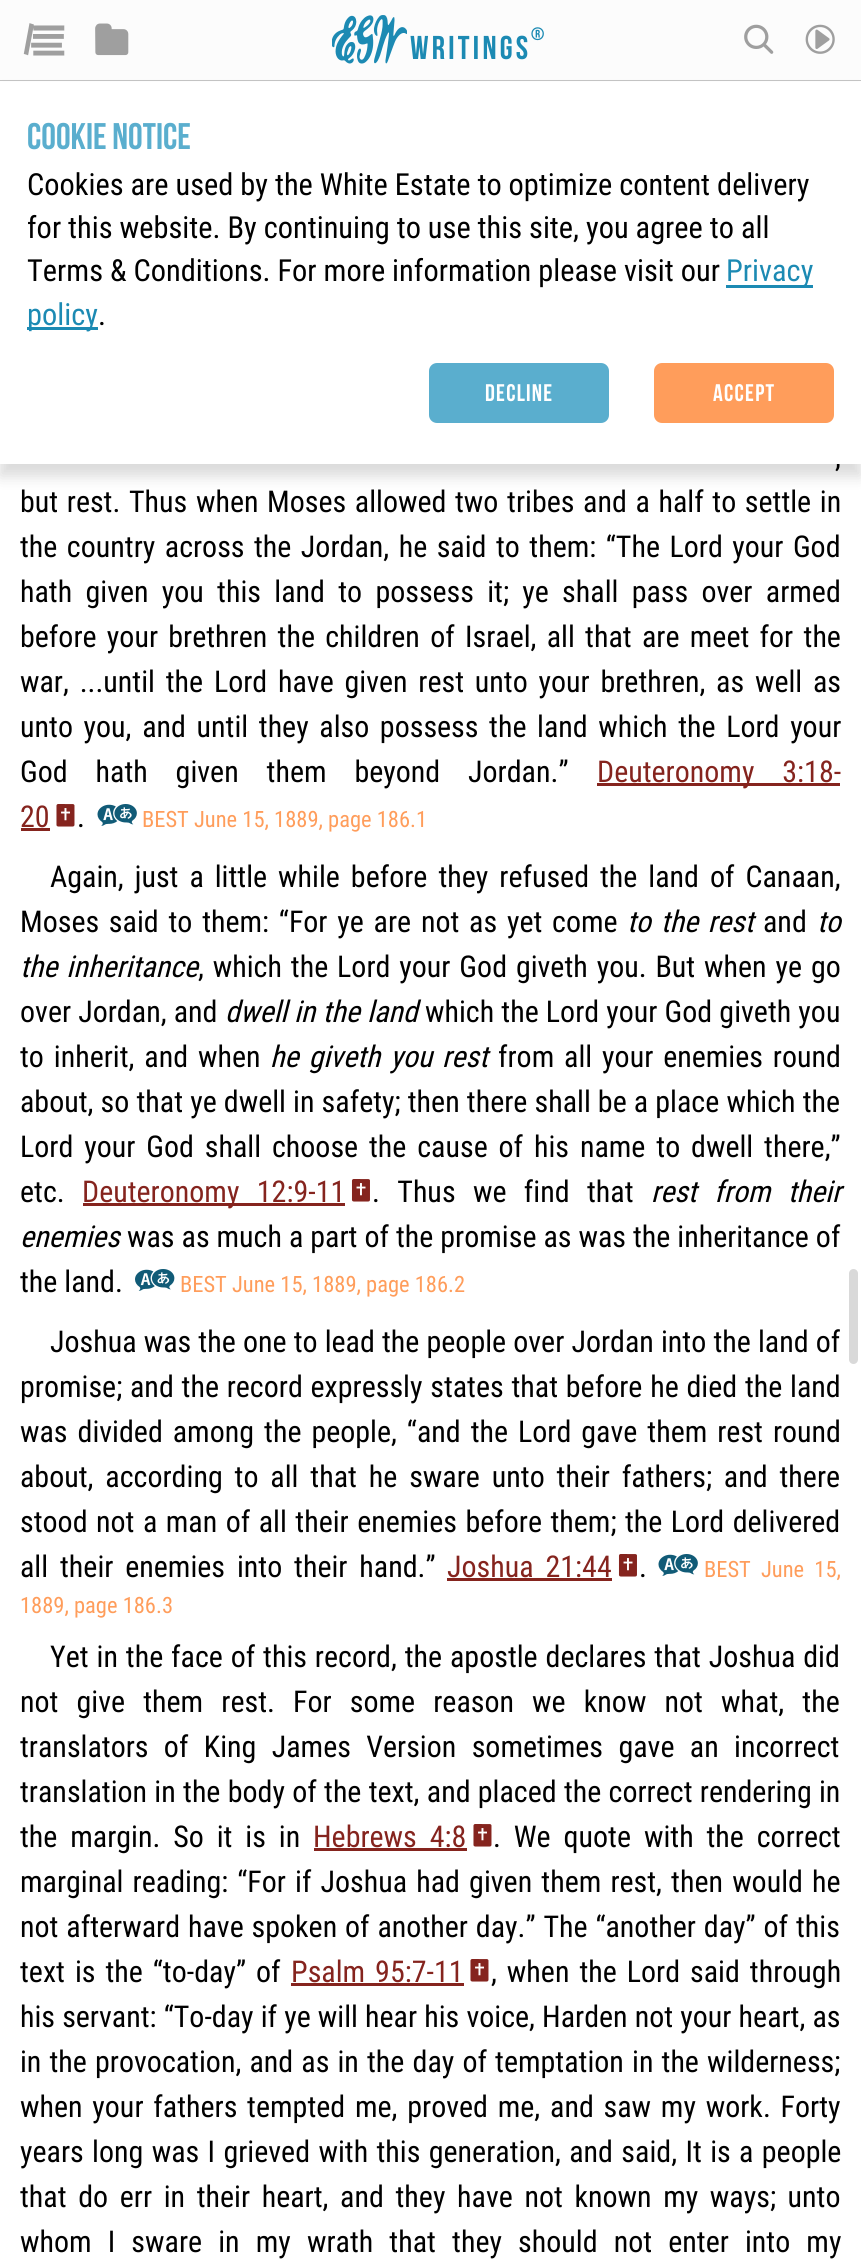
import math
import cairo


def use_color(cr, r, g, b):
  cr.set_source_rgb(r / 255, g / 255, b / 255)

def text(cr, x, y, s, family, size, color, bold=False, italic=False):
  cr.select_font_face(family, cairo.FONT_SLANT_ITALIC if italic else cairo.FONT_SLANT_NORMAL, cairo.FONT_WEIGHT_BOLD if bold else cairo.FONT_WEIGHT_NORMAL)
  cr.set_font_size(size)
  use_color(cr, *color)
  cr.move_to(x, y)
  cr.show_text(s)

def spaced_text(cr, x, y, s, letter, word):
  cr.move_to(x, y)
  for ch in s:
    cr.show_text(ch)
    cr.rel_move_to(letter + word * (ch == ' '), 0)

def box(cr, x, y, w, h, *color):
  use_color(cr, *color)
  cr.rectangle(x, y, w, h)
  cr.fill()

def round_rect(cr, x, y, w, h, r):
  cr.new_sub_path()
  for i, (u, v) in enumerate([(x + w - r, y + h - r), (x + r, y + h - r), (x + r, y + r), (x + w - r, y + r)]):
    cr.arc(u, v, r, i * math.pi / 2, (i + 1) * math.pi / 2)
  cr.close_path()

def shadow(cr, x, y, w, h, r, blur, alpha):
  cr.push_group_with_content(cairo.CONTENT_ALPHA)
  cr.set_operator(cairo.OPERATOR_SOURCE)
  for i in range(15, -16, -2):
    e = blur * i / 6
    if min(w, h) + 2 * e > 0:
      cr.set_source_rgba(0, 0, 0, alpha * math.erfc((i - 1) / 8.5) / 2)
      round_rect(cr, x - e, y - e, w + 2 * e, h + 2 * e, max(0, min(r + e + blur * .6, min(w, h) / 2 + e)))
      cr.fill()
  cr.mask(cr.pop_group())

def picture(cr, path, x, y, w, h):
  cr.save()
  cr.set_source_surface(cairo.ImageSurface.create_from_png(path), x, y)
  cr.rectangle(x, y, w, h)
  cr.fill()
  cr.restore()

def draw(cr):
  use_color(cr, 255, 255, 255)
  cr.paint()
  box(cr, 0, 0, 861, 80, 252, 252, 252)
  box(cr, 0, 80, 861, 1, 196, 196, 196)
  picture(cr, "img_01.png", 23, 23, 42, 33)
  picture(cr, "img_02.png", 95, 23, 34, 33)
  picture(cr, "img_03.png", 332, 15, 75, 49)
  picture(cr, "img_04.png", 744, 24, 30, 30)
  picture(cr, "img_05.png", 805, 24, 30, 30)
  use_color(cr, 0, 0, 0)
  shadow(cr, 0, 93, 861, 383, 0, 7.5, 0.15)
  box(cr, 597, 783, 243, 3, 133, 36, 30)
  box(cr, 21, 828, 29, 3, 133, 36, 30)
  picture(cr, "img_06.png", 56, 804, 19, 23)
  picture(cr, "img_07.png", 97, 804, 40, 22)
  box(cr, 83, 1203, 262, 3, 133, 36, 30)
  picture(cr, "img_08.png", 351, 1179, 19, 23)
  picture(cr, "img_09.png", 135, 1269, 40, 22)
  box(cr, 447, 1578, 165, 3, 133, 36, 30)
  picture(cr, "img_08.png", 618, 1554, 19, 23)
  picture(cr, "img_07.png", 658, 1554, 40, 22)
  box(cr, 314, 1848, 153, 3, 133, 36, 30)
  picture(cr, "img_06.png", 473, 1824, 19, 23)
  box(cr, 291, 1983, 173, 3, 133, 36, 30)
  picture(cr, "img_06.png", 470, 1959, 19, 23)
  use_color(cr, 217, 217, 217)
  round_rect(cr, 849, 1269, 9, 95, 4.5)
  cr.fill()
  cr.select_font_face("Bebas Neue", cairo.FONT_SLANT_NORMAL, cairo.FONT_WEIGHT_BOLD)
  cr.set_font_size(33)
  use_color(cr, 28, 138, 179)
  spaced_text(cr, 410, 59, "writings", 3.25, 0)
  cr.set_font_size(18)
  spaced_text(cr, 531, 40, "®", 2, 0)
  cr.select_font_face("Roboto Condensed")
  cr.set_font_size(30)
  use_color(cr, 0, 0, 0)
  spaced_text(cr, 835, 467, ",", 0, 1)
  box(cr, 0, 82, 861, 382, 255, 255, 255)
  use_color(cr, 255, 157, 91)
  round_rect(cr, 655, 364, 178, 58, 7)
  cr.fill_preserve()
  cr.stroke()
  cr.select_font_face("Bebas Neue", cairo.FONT_SLANT_NORMAL, cairo.FONT_WEIGHT_BOLD)
  cr.set_font_size(24)
  use_color(cr, 255, 255, 255)
  spaced_text(cr, 713, 401, "Accept", 1.25, 0)
  use_color(cr, 90, 174, 206)
  round_rect(cr, 430, 364, 178, 58, 7)
  cr.fill_preserve()
  cr.stroke()
  use_color(cr, 255, 255, 255)
  spaced_text(cr, 485, 401, "Decline", 1.25, 0)
  text(cr, 98, 325, ".", "Roboto Condensed", 30.4, (0, 0, 0))
  box(cr, 27, 327, 71, 3, 28, 138, 179)
  text(cr, 27, 325, "policy", "Roboto Condensed", 30.4, (28, 138, 179))
  box(cr, 726, 285, 87, 3, 28, 138, 179)
  text(cr, 726, 281, "Privacy", "Roboto Condensed", 30.4, (28, 138, 179))
  text(cr, 27, 281, "Terms & Conditions. For more information please visit our", "Roboto Condensed", 30.4, (0, 0, 0))
  text(cr, 27, 238, "for this website. By continuing to use this site, you agree to all", "Roboto Condensed", 30.4, (0, 0, 0))
  text(cr, 27, 195, "Cookies are used by the White Estate to optimize content delivery", "Roboto Condensed", 30.4, (0, 0, 0))
  text(cr, 27, 149, "Cookie Notice", "Bebas Neue", 37, (90, 174, 206), bold=True)
  cr.select_font_face("Roboto Condensed")
  cr.set_font_size(30)
  use_color(cr, 0, 0, 0)
  spaced_text(cr, 20, 512, "but rest. Thus when Moses allowed two tribes and a half to settle in", 0, 1.75)
  spaced_text(cr, 20, 557, "the country across the Jordan, he said to them: “The Lord your God", 0, 2.6)
  spaced_text(cr, 20, 602, "hath given you this land to possess it; ye shall pass over armed", 0, 6.4)
  spaced_text(cr, 20, 647, "before your brethren the children of Israel, all that are meet for the", 0, 3.4)
  spaced_text(cr, 20, 692, "war, ...until the Lord have given rest unto your brethren, as well as", 0, 3.9)
  spaced_text(cr, 20, 737, "unto you, and until they also possess the land which the Lord your", 0, 3.75)
  spaced_text(cr, 20, 782, "God hath given them beyond Jordan.”", 0, 21)
  use_color(cr, 133, 36, 30)
  spaced_text(cr, 597, 782, "Deuteronomy 3:18-", 0, 21)
  text(cr, 20, 827, "20", "Roboto Condensed", 30, (133, 36, 30))
  text(cr, 77, 827, ".", "Roboto Condensed", 30, (0, 0, 0))
  text(cr, 142, 827, "BEST June 15, 1889, page 186.1", "Roboto Condensed", 22.5, (255, 157, 91))
  cr.set_font_size(30)
  use_color(cr, 0, 0, 0)
  spaced_text(cr, 50, 887, "Again, just a little while before they refused the land of Canaan,", 0, 4.1)
  spaced_text(cr, 20, 932, "Moses said to them: “For ye are not as yet come", 0, 2.9)
  cr.select_font_face("Roboto Condensed", cairo.FONT_SLANT_ITALIC)
  spaced_text(cr, 627, 932, "to the rest", 0, 2.9)
  text(cr, 763, 932, "and", "Roboto Condensed", 30, (0, 0, 0))
  text(cr, 817, 932, "to", "Roboto Condensed", 30, (0, 0, 0), italic=True)
  spaced_text(cr, 20, 977, "the inheritance", 0, 2)
  cr.select_font_face("Roboto Condensed")
  spaced_text(cr, 198, 977, ", which the Lord your God giveth you. But when ye go", 0, 2)
  spaced_text(cr, 20, 1022, "over Jordan, and", 0, 0.25)
  text(cr, 225, 1022, "dwell", "Roboto Condensed", 30, (0, 0, 0), italic=True)
  spaced_text(cr, 294, 1022, "in the land", 0, 0.25)
  cr.select_font_face("Roboto Condensed")
  spaced_text(cr, 425, 1022, "which the Lord your God giveth you", 0, 0.25)
  spaced_text(cr, 20, 1067, "to inherit, and when", 0, 3)
  cr.select_font_face("Roboto Condensed", cairo.FONT_SLANT_ITALIC)
  spaced_text(cr, 270, 1067, "he giveth you rest", 0, 3)
  cr.select_font_face("Roboto Condensed")
  spaced_text(cr, 498, 1067, "from all your enemies round", 0, 3)
  spaced_text(cr, 20, 1112, "about, so that ye dwell in safety; then there shall be a place which the", 0, 0.25)
  spaced_text(cr, 20, 1157, "Lord your God shall choose the cause of his name to dwell there,”", 0, 4)
  text(cr, 20, 1202, "etc.", "Roboto Condensed", 30, (0, 0, 0))
  use_color(cr, 133, 36, 30)
  spaced_text(cr, 82, 1202, "Deuteronomy 12:9-11", 0, 10.5)
  use_color(cr, 0, 0, 0)
  spaced_text(cr, 372, 1202, ". Thus we find that", 0, 10.5)
  cr.select_font_face("Roboto Condensed", cairo.FONT_SLANT_ITALIC)
  spaced_text(cr, 651, 1202, "rest from their", 0, 10.5)
  text(cr, 20, 1247, "enemies", "Roboto Condensed", 30, (0, 0, 0), italic=True)
  cr.select_font_face("Roboto Condensed")
  spaced_text(cr, 127, 1247, "was as much a part of the promise as was the inheritance of", 0, 0.1)
  text(cr, 20, 1292, "the land.", "Roboto Condensed", 30, (0, 0, 0))
  text(cr, 180, 1292, "BEST June 15, 1889, page 186.2", "Roboto Condensed", 22.5, (255, 157, 91))
  cr.set_font_size(30)
  use_color(cr, 0, 0, 0)
  spaced_text(cr, 50, 1352, "Joshua was the one to lead the people over Jordan into the land of", 0, 0.25)
  spaced_text(cr, 20, 1397, "promise; and the record expressly states that before he died the land", 0, 0.9)
  spaced_text(cr, 20, 1442, "was divided among the people, “and the Lord gave them rest round", 0, 3.1)
  spaced_text(cr, 20, 1487, "about, according to all that he sware unto their fathers; and there", 0, 5)
  spaced_text(cr, 20, 1532, "stood not a man of all their enemies before them; the Lord delivered", 0, 1.6)
  spaced_text(cr, 20, 1577, "all their enemies into their hand.”", 0, 5)
  use_color(cr, 133, 36, 30)
  spaced_text(cr, 447, 1577, "Joshua 21:44", 0, 5)
  text(cr, 639, 1577, ".", "Roboto Condensed", 30, (0, 0, 0))
  cr.set_font_size(22.5)
  use_color(cr, 255, 157, 91)
  spaced_text(cr, 704, 1577, "BEST June 15,", 0, 5)
  text(cr, 20, 1613, "1889, page 186.3", "Roboto Condensed", 22.5, (255, 157, 91))
  cr.set_font_size(30)
  use_color(cr, 0, 0, 0)
  spaced_text(cr, 50, 1667, "Yet in the face of this record, the apostle declares that Joshua did", 0, 1)
  spaced_text(cr, 20, 1712, "not give them rest. For some reason we know not what, the", 0, 11.25)
  spaced_text(cr, 20, 1757, "translators of King James Version sometimes gave an incorrect", 0, 8.5)
  spaced_text(cr, 20, 1802, "translation in the body of the text, and placed the correct rendering in", 0, 0.4)
  spaced_text(cr, 20, 1847, "the margin. So it is in", 0, 6)
  use_color(cr, 133, 36, 30)
  spaced_text(cr, 313, 1847, "Hebrews 4:8", 0, 6)
  use_color(cr, 0, 0, 0)
  spaced_text(cr, 493, 1847, ". We quote with the correct", 0, 6)
  spaced_text(cr, 20, 1892, "marginal reading: “For if Joshua had given them rest, then would he", 0, 2.25)
  spaced_text(cr, 20, 1937, "not afterward have spoken of another day.” The “another day” of this", 0, 1)
  spaced_text(cr, 20, 1982, "text is the “to-day” of", 0, 3.1)
  use_color(cr, 133, 36, 30)
  spaced_text(cr, 291, 1982, "Psalm 95:7-11", 0, 3.1)
  use_color(cr, 0, 0, 0)
  spaced_text(cr, 491, 1982, ", when the Lord said through", 0, 3.1)
  spaced_text(cr, 20, 2027, "his servant: “To-day if ye will hear his voice, Harden not your heart, as", 0, 0.25)
  spaced_text(cr, 20, 2072, "in the provocation, and as in the day of temptation in the wilderness;", 0, 1.25)
  spaced_text(cr, 20, 2117, "when your fathers tempted me, proved me, and saw my work. Forty", 0, 2.9)
  spaced_text(cr, 20, 2162, "years long was I grieved with this generation, and said, It is a people", 0, 1.5)
  spaced_text(cr, 20, 2207, "that do err in their heart, and they have not known my ways; unto", 0, 4.75)
  spaced_text(cr, 20, 2252, "whom I sware in my wrath that they should not enter into my", 0, 9.25)


surface = cairo.ImageSurface(cairo.FORMAT_RGB24, 861, 2267)
cr = cairo.Context(surface)
options = cairo.FontOptions()
options.set_hint_metrics(cairo.HINT_METRICS_OFF)
options.set_hint_style(cairo.HINT_STYLE_NONE)
cr.set_font_options(options)
cr.set_miter_limit(4)
draw(cr)
surface.write_to_png("out.png")
